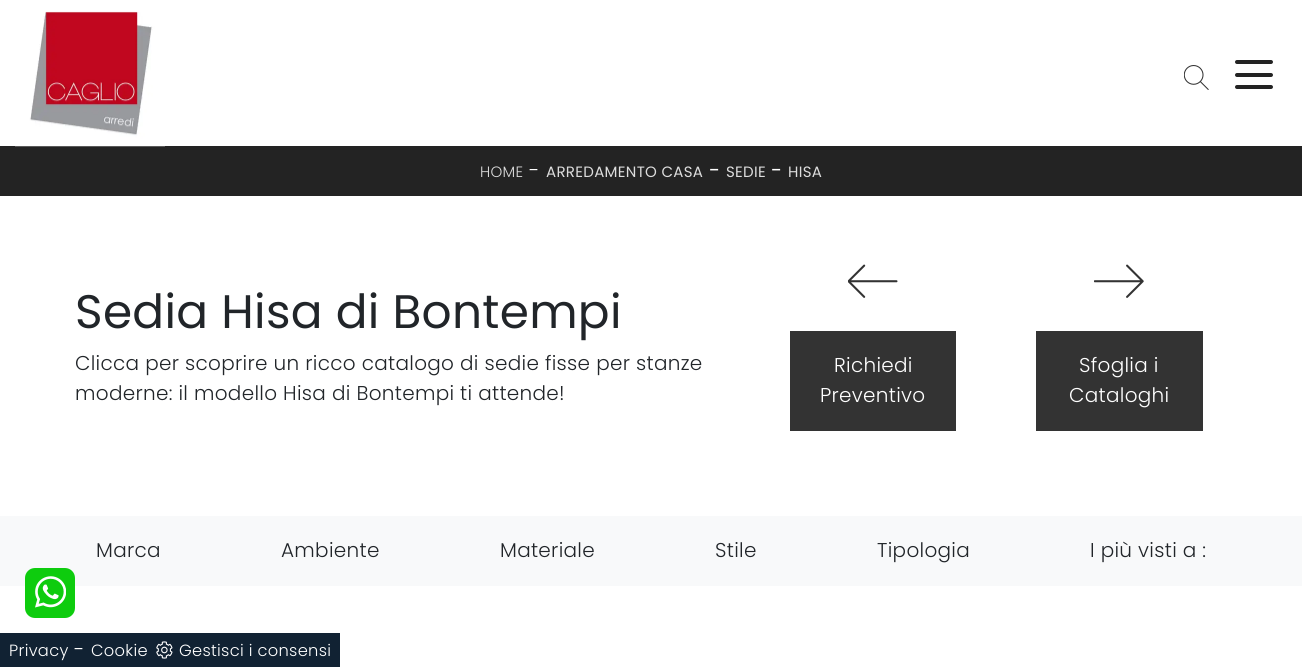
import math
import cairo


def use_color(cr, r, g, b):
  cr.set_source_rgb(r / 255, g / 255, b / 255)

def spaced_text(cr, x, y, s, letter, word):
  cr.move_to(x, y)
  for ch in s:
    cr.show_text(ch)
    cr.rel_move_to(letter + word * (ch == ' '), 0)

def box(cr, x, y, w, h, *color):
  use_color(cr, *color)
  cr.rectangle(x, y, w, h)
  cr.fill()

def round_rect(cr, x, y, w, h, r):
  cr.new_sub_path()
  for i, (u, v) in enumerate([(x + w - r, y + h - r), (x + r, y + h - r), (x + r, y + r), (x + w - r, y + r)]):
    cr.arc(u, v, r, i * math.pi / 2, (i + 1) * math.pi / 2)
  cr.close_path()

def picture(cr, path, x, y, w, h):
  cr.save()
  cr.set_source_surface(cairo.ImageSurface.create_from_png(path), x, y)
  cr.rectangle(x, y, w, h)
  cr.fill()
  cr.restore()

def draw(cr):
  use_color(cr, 255, 255, 255)
  cr.paint()
  box(cr, 0, 146, 1302, 50, 35, 35, 35)
  picture(cr, "img_01.png", 15, 11, 150, 136)
  picture(cr, "img_02.png", 1184, 65, 25, 25)
  round_rect(cr, 1235, 60, 38, 4, 2)
  cr.fill()
  round_rect(cr, 1235, 73, 38, 4, 2)
  cr.fill()
  round_rect(cr, 1235, 85, 38, 4, 2)
  cr.fill()
  picture(cr, "img_03.png", 848, 264, 50, 34)
  box(cr, 790, 331, 166, 100, 51, 51, 51)
  picture(cr, "img_04.png", 1094, 264, 50, 34)
  box(cr, 1036, 331, 167, 100, 51, 51, 51)
  box(cr, 0, 516, 1302, 70, 248, 249, 250)
  use_color(cr, 14, 204, 14)
  round_rect(cr, 25, 568, 50, 50, 10)
  cr.fill()
  picture(cr, "img_05.png", 35, 576, 31, 32)
  box(cr, 0, 633, 340, 34, 17, 34, 51)
  picture(cr, "img_06.png", 156, 641, 17, 18)
  cr.select_font_face("Poppins Light")
  cr.set_font_size(15)
  use_color(cr, 221, 221, 221)
  spaced_text(cr, 480, 177, "HOME", 0.3, 0)
  cr.set_font_size(20)
  use_color(cr, 255, 255, 255)
  spaced_text(cr, 529, 177, "-", 0.3, 0)
  cr.select_font_face("Poppins")
  cr.set_font_size(15)
  use_color(cr, 221, 221, 221)
  spaced_text(cr, 546, 177, "ARREDAMENTO CASA", 0.3, 0)
  cr.set_font_size(20)
  use_color(cr, 255, 255, 255)
  spaced_text(cr, 709, 177, "-", 0.3, 0)
  cr.set_font_size(15)
  use_color(cr, 221, 221, 221)
  spaced_text(cr, 726, 177, "SEDIE", 0.3, 0)
  cr.set_font_size(20)
  use_color(cr, 255, 255, 255)
  spaced_text(cr, 771, 177, "-", 0.3, 0)
  cr.set_font_size(15)
  use_color(cr, 221, 221, 221)
  spaced_text(cr, 788, 177, "HISA", 0.3, 0)
  cr.set_font_size(47)
  use_color(cr, 33, 37, 41)
  spaced_text(cr, 75, 328, "Sedia Hisa di Bontempi", 0.3, 0)
  cr.select_font_face("Poppins Light")
  cr.set_font_size(20)
  spaced_text(cr, 75, 370, "Clicca per scoprire un ricco catalogo di sedie fisse per stanze", 0.3, 0)
  spaced_text(cr, 75, 400, "moderne: il modello Hisa di Bontempi ti attende!", 0.3, 0)
  use_color(cr, 255, 255, 255)
  spaced_text(cr, 834, 372, "Richiedi", 0.3, 0)
  spaced_text(cr, 820, 402, "Preventivo", 0.3, 0)
  spaced_text(cr, 1079, 372, "Sfoglia i", 0.3, 0)
  spaced_text(cr, 1069, 402, "Cataloghi", 0.3, 0)
  use_color(cr, 33, 37, 41)
  spaced_text(cr, 96, 557, "Marca", 0.3, 0)
  spaced_text(cr, 281, 557, "Ambiente", 0.3, 0)
  spaced_text(cr, 500, 557, "Materiale", 0.3, 0)
  spaced_text(cr, 715, 557, "Stile", 0.3, 0)
  spaced_text(cr, 877, 557, "Tipologia", 0.3, 0)
  spaced_text(cr, 1090, 557, "I più visti a :", 0.3, 0)
  cr.set_font_size(16.25)
  use_color(cr, 255, 255, 255)
  spaced_text(cr, 9, 656, "Privacy", 0.3, 0)
  cr.set_font_size(20)
  spaced_text(cr, 74, 656, "-", 0.3, 0)
  cr.set_font_size(16.25)
  spaced_text(cr, 91, 656, "Cookie", 0.3, 0)
  spaced_text(cr, 179, 656, "Gestisci i consensi", 0.3, 0)


surface = cairo.ImageSurface(cairo.FORMAT_RGB24, 1302, 667)
cr = cairo.Context(surface)
options = cairo.FontOptions()
options.set_hint_metrics(cairo.HINT_METRICS_OFF)
options.set_hint_style(cairo.HINT_STYLE_NONE)
cr.set_font_options(options)
cr.set_miter_limit(4)
draw(cr)
surface.write_to_png("out.png")
